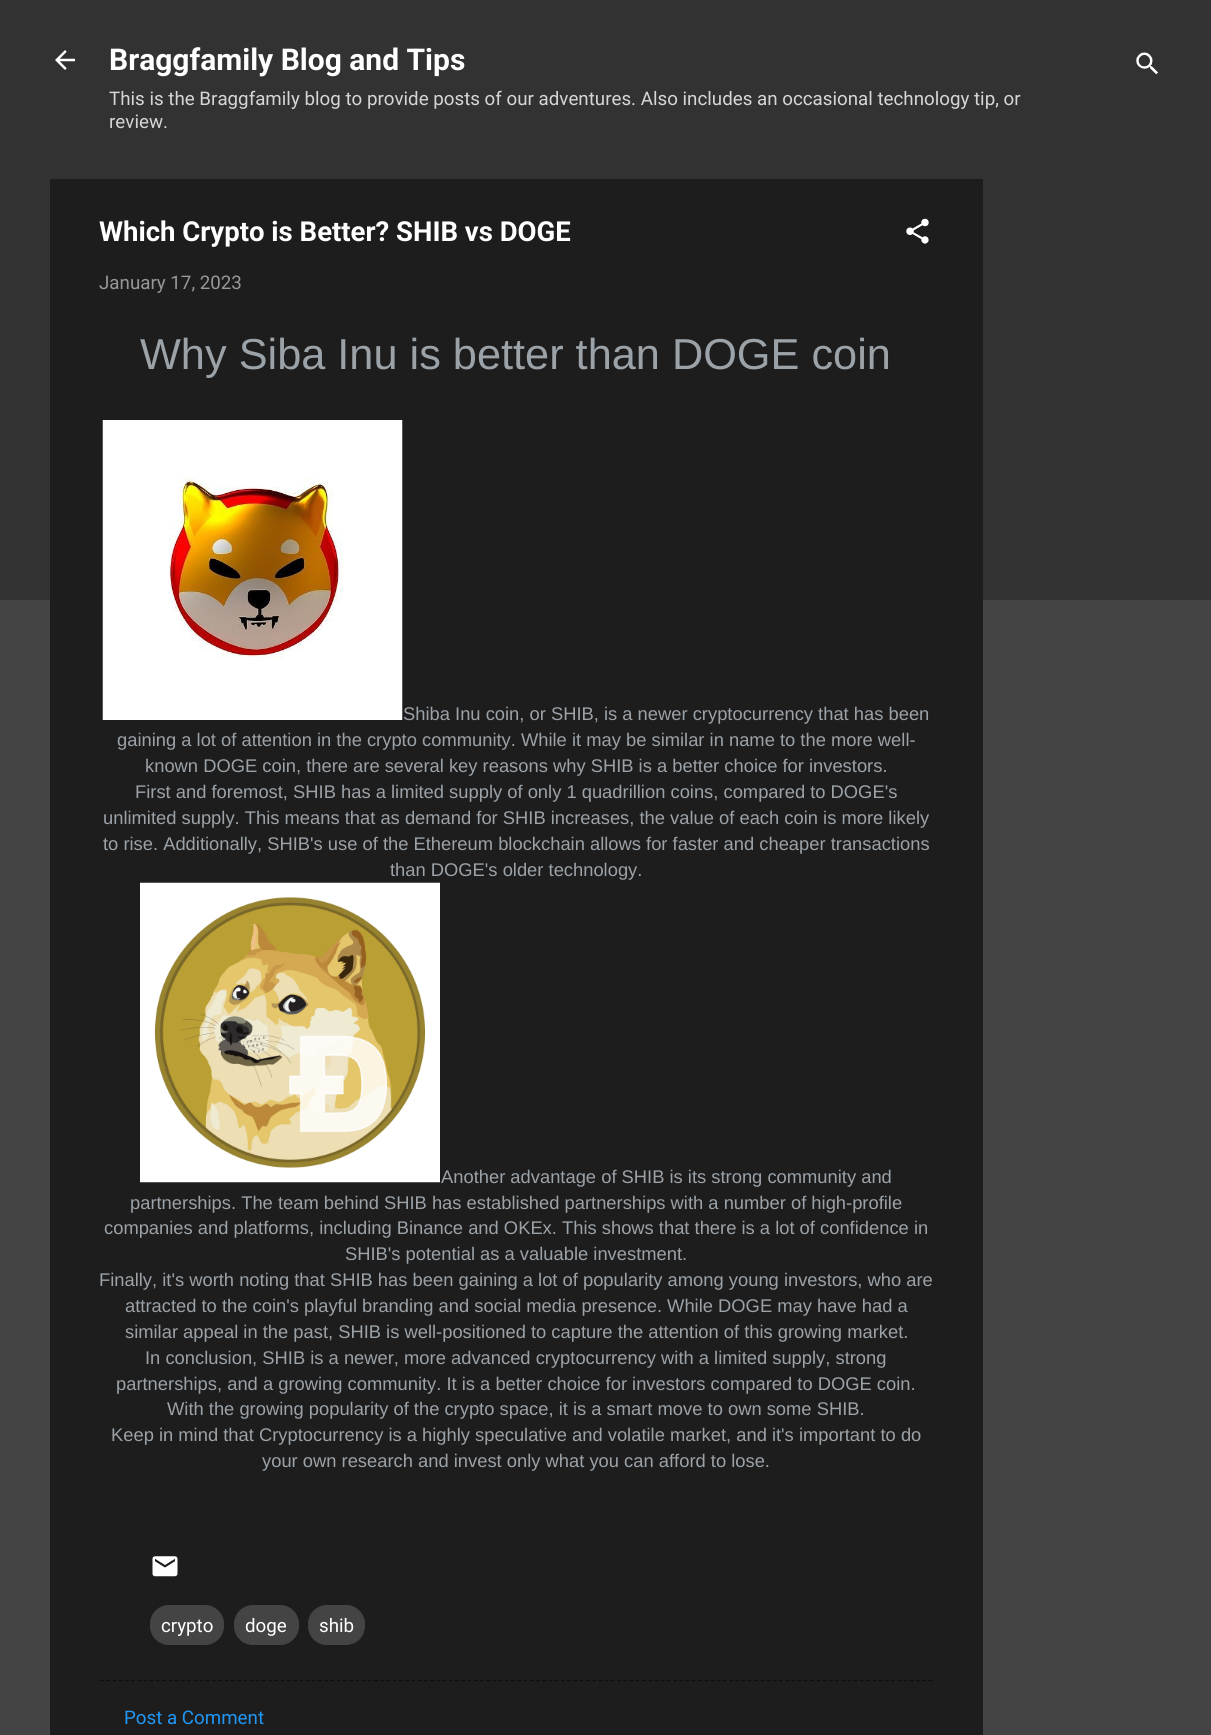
import math
import cairo


def use_color(cr, r, g, b):
  cr.set_source_rgb(r / 255, g / 255, b / 255)

def text(cr, x, y, s, family, size, color, bold=False, italic=False):
  cr.select_font_face(family, cairo.FONT_SLANT_ITALIC if italic else cairo.FONT_SLANT_NORMAL, cairo.FONT_WEIGHT_BOLD if bold else cairo.FONT_WEIGHT_NORMAL)
  cr.set_font_size(size)
  use_color(cr, *color)
  cr.move_to(x, y)
  cr.show_text(s)

def box(cr, x, y, w, h, *color):
  use_color(cr, *color)
  cr.rectangle(x, y, w, h)
  cr.fill()

def round_rect(cr, x, y, w, h, r):
  cr.new_sub_path()
  for i, (u, v) in enumerate([(x + w - r, y + h - r), (x + r, y + h - r), (x + r, y + r), (x + w - r, y + r)]):
    cr.arc(u, v, r, i * math.pi / 2, (i + 1) * math.pi / 2)
  cr.close_path()

def picture(cr, path, x, y, w, h):
  cr.save()
  cr.set_source_surface(cairo.ImageSurface.create_from_png(path), x, y)
  cr.rectangle(x, y, w, h)
  cr.fill()
  cr.restore()

def draw(cr):
  use_color(cr, 68, 68, 68)
  cr.paint()
  box(cr, 0, 0, 1211, 600, 50, 50, 50)
  picture(cr, "img_01.png", 55, 50, 20, 20)
  picture(cr, "img_02.png", 1136, 52, 22, 23)
  box(cr, 50, 179, 933, 1556, 29, 29, 29)
  picture(cr, "img_03.png", 906, 218, 23, 26)
  picture(cr, "img_04.png", 102, 420, 301, 300)
  picture(cr, "img_05.png", 140, 882, 300, 301)
  picture(cr, "img_06.png", 152, 1556, 26, 21)
  use_color(cr, 68, 68, 68)
  round_rect(cr, 150.5, 1605.5, 73, 39, 18.5)
  cr.fill_preserve()
  cr.set_line_width(1)
  cr.stroke()
  round_rect(cr, 234.5, 1605.5, 64, 39, 18.5)
  cr.fill_preserve()
  cr.stroke()
  round_rect(cr, 308.5, 1605.5, 56, 39, 18.5)
  cr.fill_preserve()
  cr.stroke()
  cr.new_path()
  cr.move_to(100, 1680.5)
  cr.line_to(932.5, 1680.5)
  use_color(cr, 13, 13, 13)
  cr.set_line_width(1.2)
  cr.set_dash([3.75, 2.48])
  cr.stroke()
  text(cr, 109, 70, "Braggfamily Blog and Tips", "Roboto", 30, (255, 255, 255), bold=True)
  text(cr, 109, 105, "This is the Braggfamily blog to provide posts of our adventures. Also includes an occasional technology tip, or", "Roboto", 18.75, (214, 214, 214))
  text(cr, 109, 128, "review.", "Roboto", 18.75, (214, 214, 214))
  text(cr, 99, 241, "Which Crypto is Better? SHIB vs DOGE", "Roboto", 27.5, (255, 255, 255), bold=True)
  text(cr, 99, 289, "January 17, 2023", "Roboto", 18.75, (151, 151, 151))
  text(cr, 140, 369, "Why Siba Inu is better than DOGE coin", "Liberation Sans", 43.3, (155, 162, 168))
  text(cr, 403, 720, "Shiba Inu coin, or SHIB, is a newer cryptocurrency that has been", "Liberation Sans", 18.35, (155, 162, 168))
  text(cr, 117, 746, "gaining a lot of attention in the crypto community. While it may be similar in name to the more well-", "Liberation Sans", 18.35, (155, 162, 168))
  text(cr, 145, 772, "known DOGE coin, there are several key reasons why SHIB is a better choice for investors.", "Liberation Sans", 18.35, (155, 162, 168))
  text(cr, 135, 798, "First and foremost, SHIB has a limited supply of only 1 quadrillion coins, compared to DOGE's", "Liberation Sans", 18.35, (155, 162, 168))
  text(cr, 103, 824, "unlimited supply. This means that as demand for SHIB increases, the value of each coin is more likely", "Liberation Sans", 18.35, (155, 162, 168))
  text(cr, 103, 850, "to rise. Additionally, SHIB's use of the Ethereum blockchain allows for faster and cheaper transactions", "Liberation Sans", 18.35, (155, 162, 168))
  text(cr, 390, 876, "than DOGE's older technology.", "Liberation Sans", 18.35, (155, 162, 168))
  text(cr, 441, 1183, "Another advantage of SHIB is its strong community and", "Liberation Sans", 18.35, (155, 162, 168))
  text(cr, 130, 1209, "partnerships. The team behind SHIB has established partnerships with a number of high-profile", "Liberation Sans", 18.35, (155, 162, 168))
  text(cr, 104, 1234, "companies and platforms, including Binance and OKEx. This shows that there is a lot of confidence in", "Liberation Sans", 18.35, (155, 162, 168))
  text(cr, 345, 1260, "SHIB's potential as a valuable investment.", "Liberation Sans", 18.35, (155, 162, 168))
  text(cr, 99, 1286, "Finally, it's worth noting that SHIB has been gaining a lot of popularity among young investors, who are", "Liberation Sans", 18.35, (155, 162, 168))
  text(cr, 125, 1312, "attracted to the coin's playful branding and social media presence. While DOGE may have had a", "Liberation Sans", 18.35, (155, 162, 168))
  text(cr, 125, 1338, "similar appeal in the past, SHIB is well-positioned to capture the attention of this growing market.", "Liberation Sans", 18.35, (155, 162, 168))
  text(cr, 145, 1364, "In conclusion, SHIB is a newer, more advanced cryptocurrency with a limited supply, strong", "Liberation Sans", 18.35, (155, 162, 168))
  text(cr, 116, 1390, "partnerships, and a growing community. It is a better choice for investors compared to DOGE coin.", "Liberation Sans", 18.35, (155, 162, 168))
  text(cr, 167, 1415, "With the growing popularity of the crypto space, it is a smart move to own some SHIB.", "Liberation Sans", 18.35, (155, 162, 168))
  text(cr, 111, 1441, "Keep in mind that Cryptocurrency is a highly speculative and volatile market, and it's important to do", "Liberation Sans", 18.35, (155, 162, 168))
  text(cr, 262, 1467, "your own research and invest only what you can afford to lose.", "Liberation Sans", 18.35, (155, 162, 168))
  text(cr, 161, 1632, "crypto", "Roboto", 18.75, (255, 255, 255))
  text(cr, 245, 1632, "doge", "Roboto", 18.75, (255, 255, 255))
  text(cr, 319, 1632, "shib", "Roboto", 18.75, (255, 255, 255))
  text(cr, 124, 1724, "Post a Comment", "Roboto", 18.75, (33, 150, 243))


surface = cairo.ImageSurface(cairo.FORMAT_RGB24, 1211, 1735)
cr = cairo.Context(surface)
options = cairo.FontOptions()
options.set_hint_metrics(cairo.HINT_METRICS_OFF)
options.set_hint_style(cairo.HINT_STYLE_NONE)
cr.set_font_options(options)
cr.set_miter_limit(4)
draw(cr)
surface.write_to_png("out.png")
